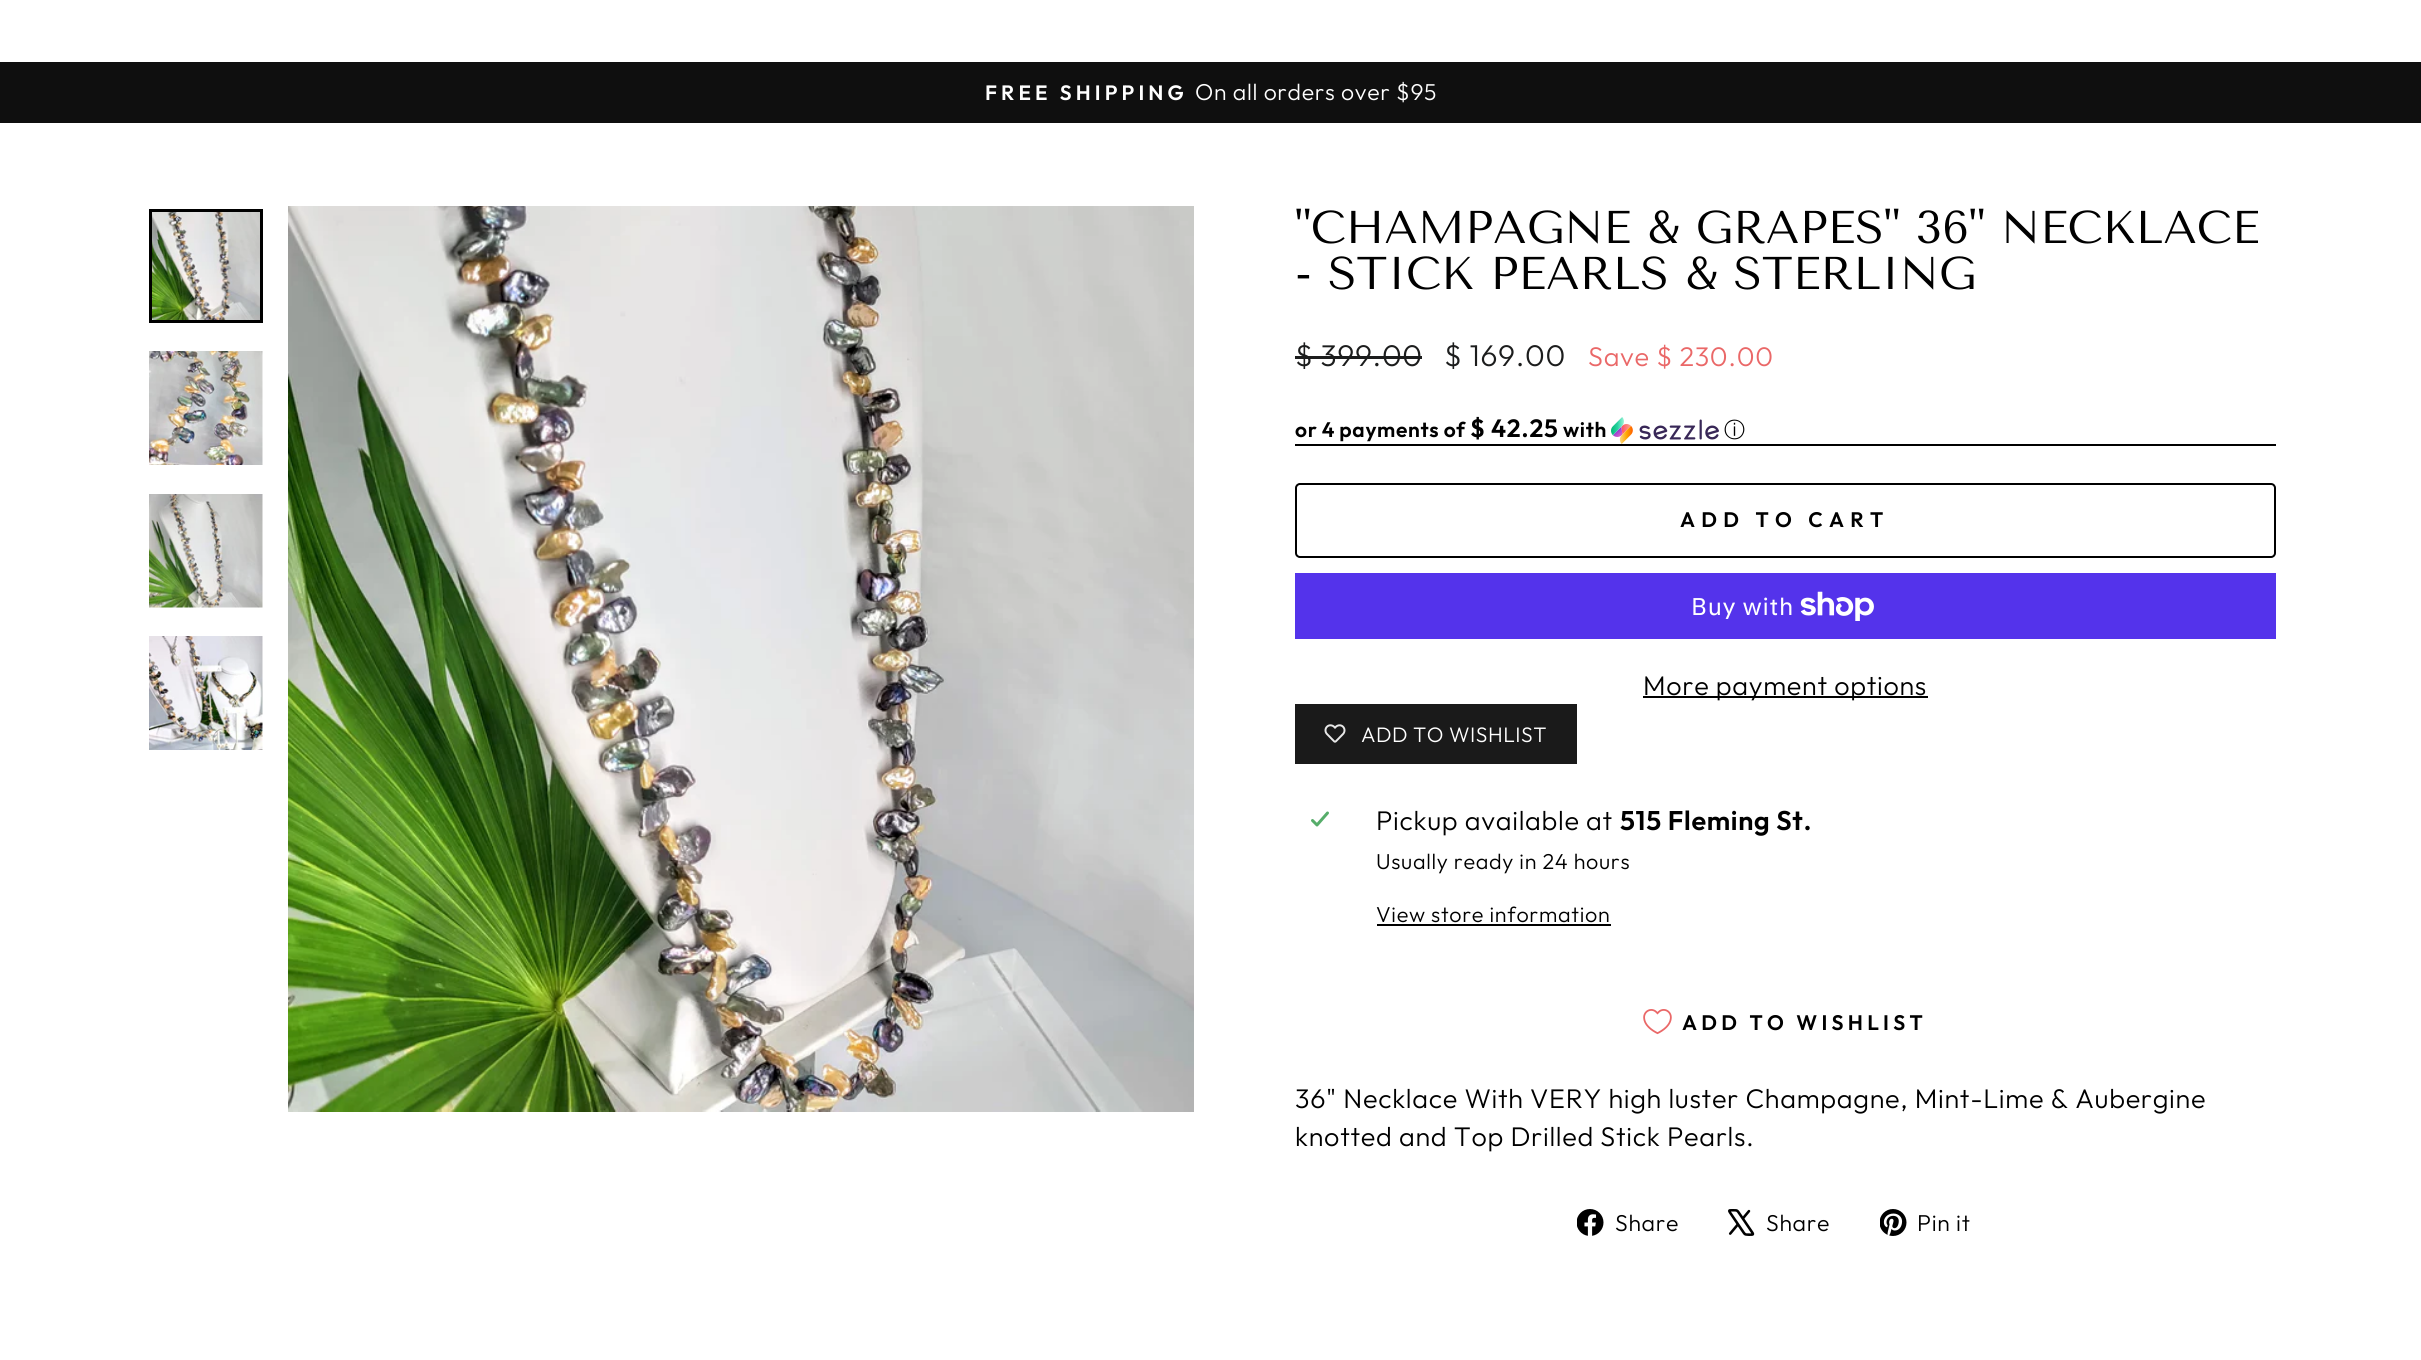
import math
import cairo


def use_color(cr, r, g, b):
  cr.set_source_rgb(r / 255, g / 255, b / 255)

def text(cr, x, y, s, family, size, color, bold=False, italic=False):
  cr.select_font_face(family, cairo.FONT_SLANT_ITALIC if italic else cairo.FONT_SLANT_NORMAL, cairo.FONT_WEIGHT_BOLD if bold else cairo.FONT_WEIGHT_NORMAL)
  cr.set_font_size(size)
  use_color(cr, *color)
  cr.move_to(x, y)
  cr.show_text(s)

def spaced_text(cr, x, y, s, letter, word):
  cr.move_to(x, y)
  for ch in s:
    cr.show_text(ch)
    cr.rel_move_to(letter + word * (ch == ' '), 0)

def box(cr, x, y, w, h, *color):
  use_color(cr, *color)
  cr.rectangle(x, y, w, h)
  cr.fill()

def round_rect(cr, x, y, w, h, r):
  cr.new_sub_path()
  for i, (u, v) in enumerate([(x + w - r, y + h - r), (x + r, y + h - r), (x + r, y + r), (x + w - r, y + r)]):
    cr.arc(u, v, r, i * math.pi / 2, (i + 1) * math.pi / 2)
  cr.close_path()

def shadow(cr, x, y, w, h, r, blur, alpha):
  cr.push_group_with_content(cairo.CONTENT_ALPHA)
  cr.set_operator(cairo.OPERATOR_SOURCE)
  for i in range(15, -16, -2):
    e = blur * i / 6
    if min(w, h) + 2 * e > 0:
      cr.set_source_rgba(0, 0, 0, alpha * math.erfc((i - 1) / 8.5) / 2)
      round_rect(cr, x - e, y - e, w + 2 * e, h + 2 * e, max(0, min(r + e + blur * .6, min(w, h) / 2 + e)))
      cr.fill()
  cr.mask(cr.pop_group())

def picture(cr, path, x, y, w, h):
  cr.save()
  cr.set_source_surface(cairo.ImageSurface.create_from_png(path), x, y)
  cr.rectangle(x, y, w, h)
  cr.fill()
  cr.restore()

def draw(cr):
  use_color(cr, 255, 255, 255)
  cr.paint()
  box(cr, 0, 62, 2421, 61, 15, 15, 15)
  use_color(cr, 0, 0, 0)
  shadow(cr, 0, -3, 2421, 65, 0, 1, 0.2)
  box(cr, 0, 0, 2421, 62, 255, 255, 255)
  picture(cr, "img_01.png", 152, 212, 108, 108)
  cr.rectangle(150.5, 210.5, 111, 111)
  use_color(cr, 0, 0, 0)
  cr.set_line_width(3)
  cr.stroke()
  picture(cr, "img_02.png", 149, 351, 114, 114)
  picture(cr, "img_03.png", 149, 494, 114, 114)
  picture(cr, "img_04.png", 149, 636, 114, 114)
  picture(cr, "img_05.png", 288, 206, 906, 906)
  box(cr, 1295, 356, 127, 3, 28, 29, 29)
  picture(cr, "img_06.png", 1611, 417, 108, 27)
  box(cr, 1295, 444, 981, 2, 0, 0, 0)
  round_rect(cr, 1296, 484, 979, 73, 4)
  cr.set_line_width(2)
  cr.stroke()
  box(cr, 1295, 573, 981, 66, 84, 51, 235)
  picture(cr, "img_07.png", 1800, 591, 74, 30)
  box(cr, 1643, 696, 285, 2, 0, 0, 0)
  box(cr, 1295, 704, 282, 60, 26, 26, 26)
  picture(cr, "img_08.png", 1324, 724, 22, 19)
  picture(cr, "img_09.png", 1311, 811, 18, 16)
  box(cr, 1377, 924, 234, 2, 0, 0, 0)
  picture(cr, "img_10.png", 1643, 1009, 29, 26)
  picture(cr, "img_11.png", 1577, 1209, 27, 27)
  picture(cr, "img_12.png", 1728, 1209, 27, 27)
  picture(cr, "img_13.png", 1880, 1209, 27, 27)
  cr.select_font_face("Outfit SemiBold")
  cr.set_font_size(20.75)
  use_color(cr, 255, 255, 255)
  spaced_text(cr, 985, 100, "FREE SHIPPING", 4.1, 0)
  cr.select_font_face("Outfit Light")
  cr.set_font_size(23)
  spaced_text(cr, 1195, 100, "On all orders over $95", 0.68, 0)
  text(cr, 1295, 243, "\"CHAMPAGNE & GRAPES\" 36\" NECKLACE", "Tenor Sans", 45.9, (0, 0, 0))
  text(cr, 1295, 289, "- STICK PEARLS & STERLING", "Tenor Sans", 45.9, (0, 0, 0))
  cr.select_font_face("Outfit Light")
  cr.set_font_size(30)
  use_color(cr, 28, 29, 29)
  spaced_text(cr, 1295, 366, "$ 399.00", 0.68, 0)
  spaced_text(cr, 1444, 366, "$ 169.00", 0.68, 0)
  cr.set_font_size(27)
  use_color(cr, 234, 104, 104)
  spaced_text(cr, 1588, 366, "Save $ 230.00", 0.68, 0)
  cr.select_font_face("Outfit SemiBold")
  cr.set_font_size(21)
  use_color(cr, 0, 0, 0)
  spaced_text(cr, 1295, 437, "or 4 payments of", 0.68, -0.5)
  cr.set_font_size(25)
  spaced_text(cr, 1470, 437, "$ 42.25", 0.68, 0)
  cr.set_font_size(21)
  spaced_text(cr, 1563, 437, "with", 0.68, 0)
  cr.select_font_face("WenQuanYi Zen Hei Medium")
  spaced_text(cr, 1724, 437, "ⓘ", 0.68, 0)
  cr.select_font_face("Outfit SemiBold")
  spaced_text(cr, 1680, 527, "ADD TO CART", 6.25, 0)
  cr.select_font_face("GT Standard")
  cr.set_font_size(24)
  use_color(cr, 255, 255, 255)
  spaced_text(cr, 1691, 615, "Buy with", 0.68, 0)
  cr.select_font_face("Outfit Light")
  cr.set_font_size(27)
  use_color(cr, 0, 0, 0)
  spaced_text(cr, 1643, 695, "More payment options", 0.68, 0)
  cr.set_font_size(21)
  use_color(cr, 255, 255, 255)
  spaced_text(cr, 1361, 742, "ADD TO WISHLIST", 0.5, 0)
  cr.set_font_size(27)
  use_color(cr, 0, 0, 0)
  spaced_text(cr, 1376, 830, "Pickup available at", 0.68, 0)
  cr.select_font_face("Outfit SemiBold")
  spaced_text(cr, 1620, 830, "515 Fleming St.", 0.68, 0)
  cr.select_font_face("Outfit Light")
  cr.set_font_size(21.6)
  spaced_text(cr, 1376, 869, "Usually ready in 24 hours", 0.68, 0)
  spaced_text(cr, 1376, 922, "View store information", 0.68, 0)
  cr.select_font_face("Outfit SemiBold")
  cr.set_font_size(21)
  spaced_text(cr, 1682, 1030, "ADD TO WISHLIST", 4.25, 0)
  cr.select_font_face("Outfit Light")
  cr.set_font_size(27)
  spaced_text(cr, 1295, 1108, "36\" Necklace With VERY high luster Champagne, Mint-Lime & Aubergine", 0.68, 0)
  spaced_text(cr, 1295, 1146, "knotted and Top Drilled Stick Pearls.", 0.68, 0)
  cr.set_font_size(23)
  spaced_text(cr, 1615, 1231, "Share", 0.68, 0)
  spaced_text(cr, 1766, 1231, "Share", 0.68, 0)
  spaced_text(cr, 1917, 1231, "Pin it", 0.68, 0)


surface = cairo.ImageSurface(cairo.FORMAT_RGB24, 2421, 1360)
cr = cairo.Context(surface)
options = cairo.FontOptions()
options.set_hint_metrics(cairo.HINT_METRICS_OFF)
options.set_hint_style(cairo.HINT_STYLE_NONE)
cr.set_font_options(options)
cr.set_miter_limit(4)
draw(cr)
surface.write_to_png("out.png")
